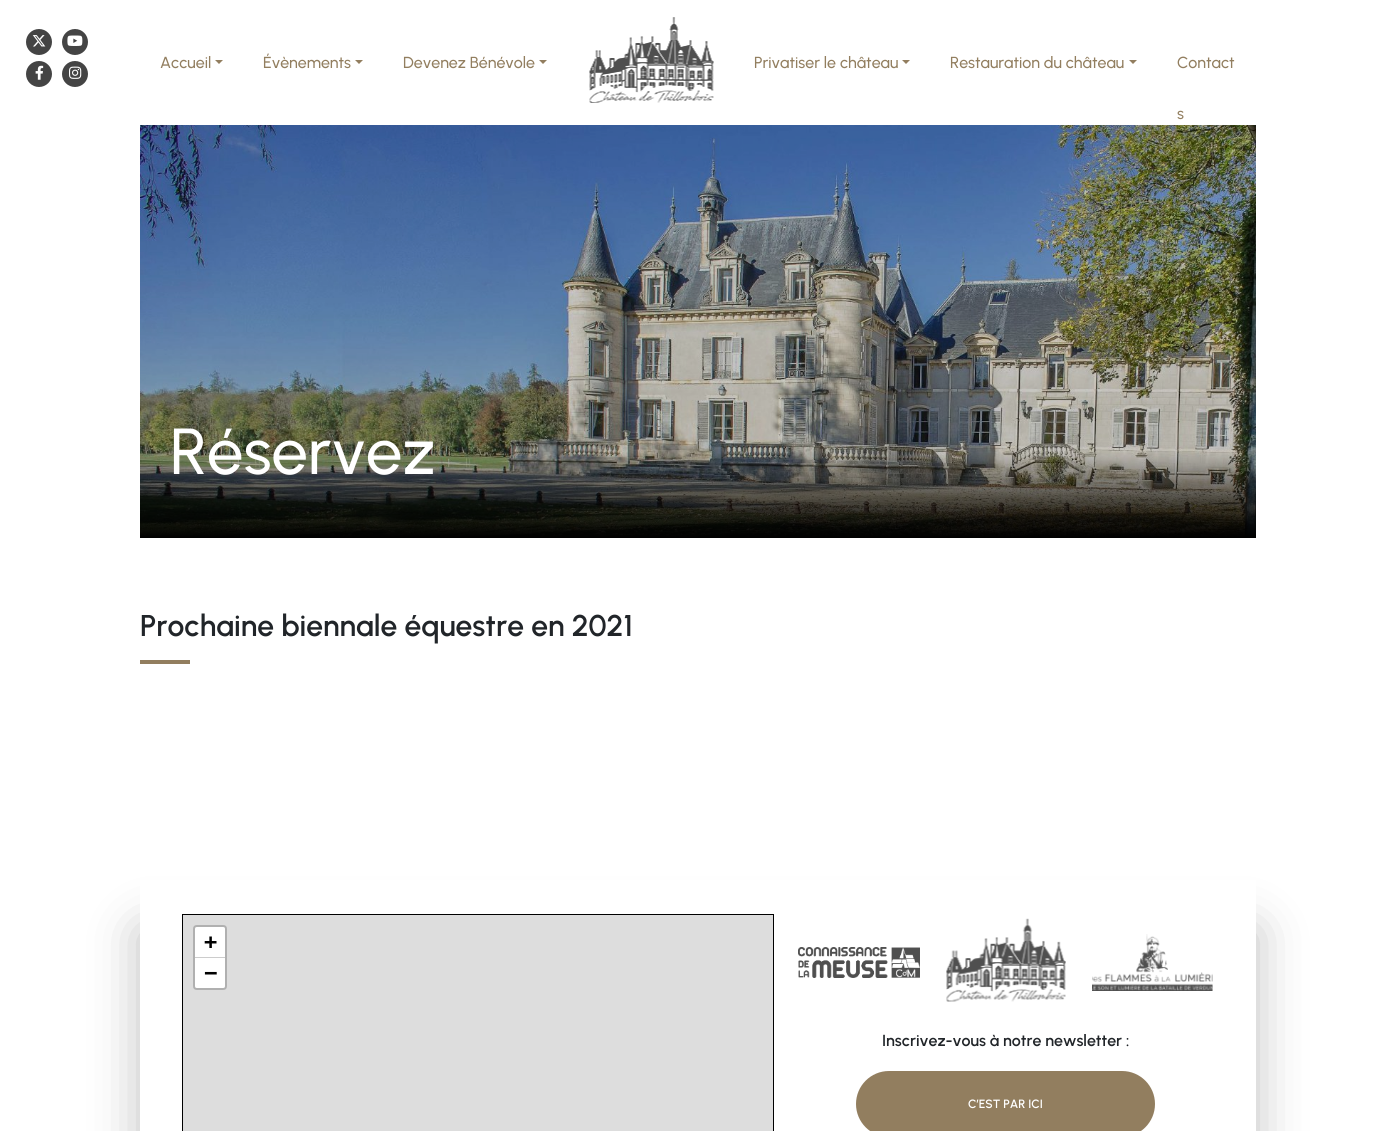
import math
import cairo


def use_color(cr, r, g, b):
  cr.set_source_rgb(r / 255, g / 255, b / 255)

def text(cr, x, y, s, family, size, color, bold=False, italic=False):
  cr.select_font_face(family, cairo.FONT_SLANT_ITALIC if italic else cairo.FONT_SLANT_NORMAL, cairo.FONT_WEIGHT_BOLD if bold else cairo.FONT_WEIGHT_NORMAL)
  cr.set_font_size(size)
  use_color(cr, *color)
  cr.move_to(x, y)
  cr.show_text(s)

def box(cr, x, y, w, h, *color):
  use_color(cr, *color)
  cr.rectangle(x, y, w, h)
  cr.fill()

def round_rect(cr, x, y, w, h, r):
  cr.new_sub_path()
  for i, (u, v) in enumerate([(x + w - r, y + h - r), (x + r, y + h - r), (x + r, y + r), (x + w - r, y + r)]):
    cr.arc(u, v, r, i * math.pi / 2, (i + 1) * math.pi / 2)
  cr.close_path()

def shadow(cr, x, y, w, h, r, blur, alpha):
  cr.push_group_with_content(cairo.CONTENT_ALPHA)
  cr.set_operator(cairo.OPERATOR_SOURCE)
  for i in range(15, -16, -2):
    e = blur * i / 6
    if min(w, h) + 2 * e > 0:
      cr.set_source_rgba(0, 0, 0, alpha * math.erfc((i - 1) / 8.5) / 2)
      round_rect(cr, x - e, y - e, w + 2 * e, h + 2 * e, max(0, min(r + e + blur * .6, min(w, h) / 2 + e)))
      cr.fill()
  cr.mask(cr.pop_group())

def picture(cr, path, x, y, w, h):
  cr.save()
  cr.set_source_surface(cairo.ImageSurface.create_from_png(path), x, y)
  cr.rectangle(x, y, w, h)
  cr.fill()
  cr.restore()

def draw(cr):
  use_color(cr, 255, 255, 255)
  cr.paint()
  use_color(cr, 68, 68, 68)
  cr.arc(39, 42, 13, 0, 2 * math.pi)
  cr.fill()
  picture(cr, "img_01.png", 32, 35, 14, 12)
  cr.arc(75, 42, 13, 0, 2 * math.pi)
  cr.fill()
  picture(cr, "img_02.png", 67, 35, 16, 11)
  cr.arc(39, 74, 13, 0, 2 * math.pi)
  cr.fill()
  picture(cr, "img_03.png", 35, 65, 9, 15)
  cr.arc(75, 74, 13, 0, 2 * math.pi)
  cr.fill()
  picture(cr, "img_04.png", 69, 66, 13, 13)
  use_color(cr, 146, 126, 95)
  cr.new_path()
  cr.move_to(215, 60)
  cr.line_to(223, 60)
  cr.line_to(219, 64)
  cr.close_path()
  cr.fill()
  cr.new_path()
  cr.move_to(355, 60)
  cr.line_to(363, 60)
  cr.line_to(359, 64)
  cr.close_path()
  cr.fill()
  cr.new_path()
  cr.move_to(539, 60)
  cr.line_to(547, 60)
  cr.line_to(543, 64)
  cr.close_path()
  cr.fill()
  picture(cr, "img_05.png", 589, 17, 125, 86)
  cr.new_path()
  cr.move_to(902, 60)
  cr.line_to(910, 60)
  cr.line_to(906, 64)
  cr.close_path()
  cr.fill()
  cr.new_path()
  cr.move_to(1129, 60)
  cr.line_to(1137, 60)
  cr.line_to(1133, 64)
  cr.close_path()
  cr.fill()
  picture(cr, "img_06.png", 140, 125, 1116, 413)
  box(cr, 140, 660, 50, 4, 146, 126, 95)
  cr.save()
  cr.set_fill_rule(cairo.FILL_RULE_EVEN_ODD)
  cr.new_path()
  cr.move_to(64, 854)
  cr.line_to(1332, 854)
  cr.line_to(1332, 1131)
  cr.line_to(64, 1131)
  cr.close_path()
  cr.move_to(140, 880)
  cr.line_to(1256, 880)
  cr.line_to(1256, 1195)
  cr.line_to(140, 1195)
  cr.close_path()
  cr.clip()
  use_color(cr, 0, 0, 0)
  shadow(cr, 140, 930, 1116, 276, 0, 25, 0.25)
  cr.restore()
  cr.rectangle(182.5, 914.5, 591, 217)
  use_color(cr, 0, 0, 0)
  cr.set_line_width(1)
  cr.stroke()
  picture(cr, "img_07.png", 183, 915, 590, 216)
  picture(cr, "img_08.png", 798, 947, 122, 31)
  picture(cr, "img_09.png", 946, 918, 120, 84)
  picture(cr, "img_10.png", 1092, 934, 121, 57)
  use_color(cr, 146, 126, 95)
  round_rect(cr, 856, 1071, 299, 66, 33)
  cr.fill()
  text(cr, 160, 68, "Accueil", "Urbanist Medium", 16, (146, 126, 95))
  text(cr, 263, 68, "Évènements", "Urbanist Medium", 16, (146, 126, 95))
  text(cr, 403, 68, "Devenez Bénévole", "Urbanist Medium", 16, (146, 126, 95))
  text(cr, 754, 68, "Privatiser le château", "Urbanist Medium", 16, (146, 126, 95))
  text(cr, 950, 68, "Restauration du château", "Urbanist Medium", 16, (146, 126, 95))
  text(cr, 1177, 68, "Contact", "Urbanist Medium", 16, (146, 126, 95))
  text(cr, 1177, 119, "s", "Urbanist Medium", 16, (146, 126, 95))
  text(cr, 170, 474, "Réservez", "Urbanist Medium", 65, (255, 255, 255))
  text(cr, 140, 636, "Prochaine biennale équestre en 2021", "Urbanist SemiBold", 30, (33, 37, 41))
  text(cr, 882, 1046, "Inscrivez-vous à notre newsletter :", "Urbanist SemiBold", 16, (33, 37, 41))
  text(cr, 968, 1108, "C’EST PAR ICI", "Urbanist SemiBold", 12, (255, 255, 255))


surface = cairo.ImageSurface(cairo.FORMAT_RGB24, 1395, 1131)
cr = cairo.Context(surface)
options = cairo.FontOptions()
options.set_hint_metrics(cairo.HINT_METRICS_OFF)
options.set_hint_style(cairo.HINT_STYLE_NONE)
cr.set_font_options(options)
cr.set_miter_limit(4)
draw(cr)
surface.write_to_png("out.png")
